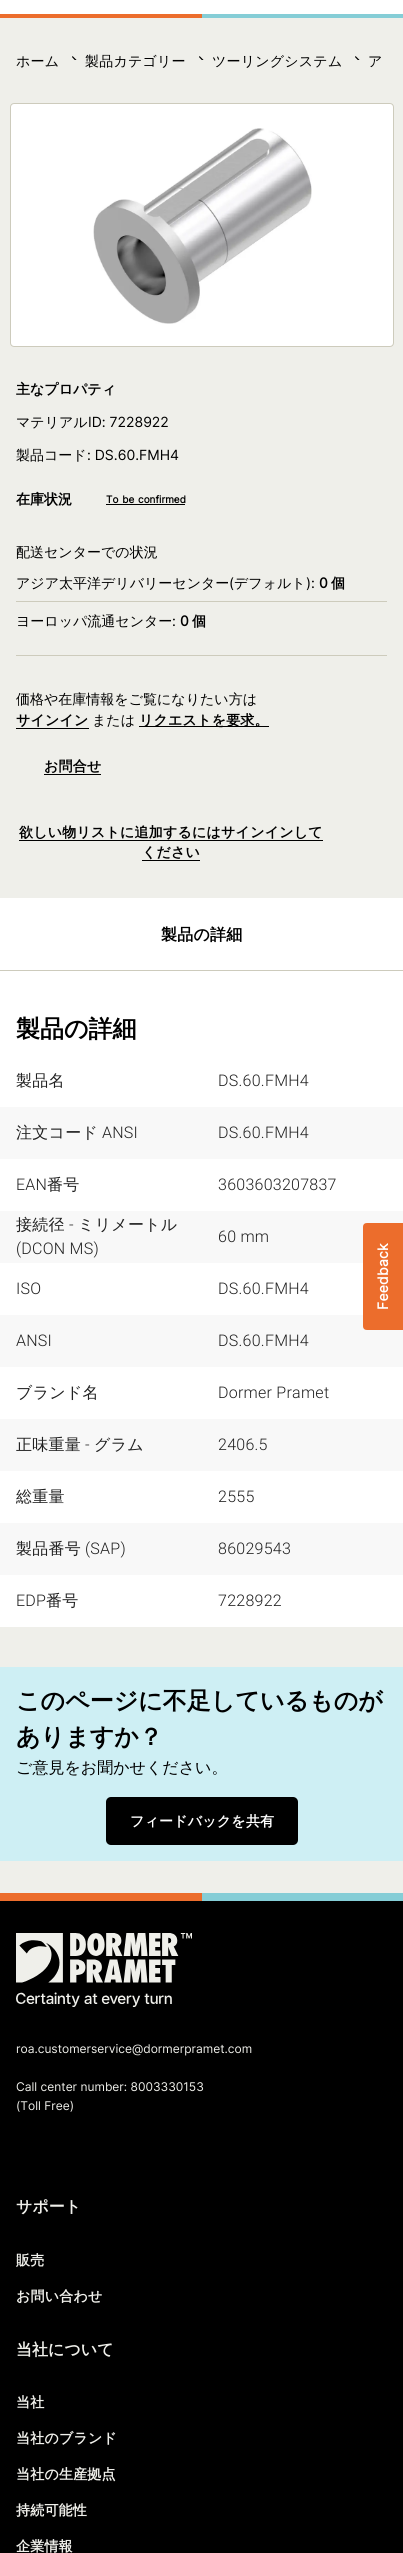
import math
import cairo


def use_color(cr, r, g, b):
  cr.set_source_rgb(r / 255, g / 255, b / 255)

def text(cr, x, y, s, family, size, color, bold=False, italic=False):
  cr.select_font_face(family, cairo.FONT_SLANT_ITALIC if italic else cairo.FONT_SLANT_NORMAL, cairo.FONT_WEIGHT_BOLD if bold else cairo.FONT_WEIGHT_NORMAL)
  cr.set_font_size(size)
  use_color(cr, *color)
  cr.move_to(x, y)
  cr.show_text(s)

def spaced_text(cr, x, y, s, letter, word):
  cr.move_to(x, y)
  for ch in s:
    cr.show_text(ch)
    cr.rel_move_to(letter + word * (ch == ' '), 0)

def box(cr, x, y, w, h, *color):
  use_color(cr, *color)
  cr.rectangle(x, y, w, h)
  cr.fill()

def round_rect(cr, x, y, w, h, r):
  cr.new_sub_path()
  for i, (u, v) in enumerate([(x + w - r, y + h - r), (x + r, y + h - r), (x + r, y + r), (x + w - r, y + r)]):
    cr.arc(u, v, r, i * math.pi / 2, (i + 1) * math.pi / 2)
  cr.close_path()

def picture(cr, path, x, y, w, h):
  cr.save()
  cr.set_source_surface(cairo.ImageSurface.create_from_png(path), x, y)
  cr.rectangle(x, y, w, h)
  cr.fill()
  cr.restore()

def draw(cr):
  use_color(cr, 239, 239, 234)
  cr.paint()
  box(cr, 0, 0, 403, 14, 255, 255, 255)
  box(cr, 0, 14, 202, 4, 236, 109, 44)
  box(cr, 202, 14, 201, 4, 133, 205, 214)
  picture(cr, "img_01.png", 72, 56, 5, 4)
  picture(cr, "img_01.png", 199, 56, 5, 4)
  picture(cr, "img_01.png", 355, 56, 5, 4)
  use_color(cr, 255, 255, 255)
  round_rect(cr, 10.5, 103.5, 383, 243, 3.5)
  cr.fill_preserve()
  use_color(cr, 205, 203, 188)
  cr.set_line_width(1)
  cr.stroke()
  picture(cr, "img_02.png", 93, 128, 219, 196)
  box(cr, 16, 655, 371, 1, 205, 203, 188)
  box(cr, 106, 504, 79, 1, 0, 0, 0)
  box(cr, 16, 601, 371, 1, 205, 203, 188)
  box(cr, 16, 728, 73, 1, 0, 0, 0)
  box(cr, 139, 726, 130, 1, 0, 0, 0)
  box(cr, 44, 774, 57, 1, 0, 0, 0)
  box(cr, 19, 840, 304, 1, 0, 0, 0)
  box(cr, 142, 860, 58, 1, 0, 0, 0)
  box(cr, 0, 898, 403, 729, 255, 255, 255)
  box(cr, 0, 970, 403, 1, 205, 203, 188)
  box(cr, 0, 1107, 403, 52, 248, 248, 248)
  box(cr, 0, 1211, 403, 52, 248, 248, 248)
  box(cr, 0, 1315, 403, 52, 248, 248, 248)
  box(cr, 0, 1419, 403, 52, 248, 248, 248)
  box(cr, 0, 1523, 403, 52, 248, 248, 248)
  box(cr, 0, 1667, 403, 194, 206, 239, 244)
  use_color(cr, 0, 0, 0)
  round_rect(cr, 106, 1797, 192, 48, 5)
  cr.fill()
  use_color(cr, 236, 109, 44)
  cr.new_path()
  cr.move_to(363, 1326)
  cr.line_to(363, 1227)
  cr.curve_to(363, 1224, 365, 1223, 367, 1223)
  cr.line_to(403, 1223)
  cr.line_to(403, 1330)
  cr.line_to(367, 1330)
  cr.curve_to(365, 1330, 363, 1329, 363, 1326)
  cr.close_path()
  cr.fill()
  box(cr, 0, 1901, 403, 652, 0, 0, 0)
  box(cr, 0, 1893, 202, 8, 236, 109, 44)
  box(cr, 202, 1893, 201, 8, 133, 205, 214)
  picture(cr, "img_03.png", 16, 1933, 176, 74)
  cr.select_font_face("WenQuanYi Zen Hei Medium")
  cr.set_font_size(14)
  use_color(cr, 0, 0, 0)
  spaced_text(cr, 16, 66, "ホーム", 0.2, 0)
  spaced_text(cr, 85, 66, "製品カテゴリー", 0.2, 0)
  spaced_text(cr, 212, 66, "ツーリングシステム", 0.2, 0)
  spaced_text(cr, 368, 66, "ア", 0.2, 0)
  text(cr, 16, 394, "主なプロパティ", "WenQuanYi Zen Hei", 14, (0, 0, 0), bold=True)
  text(cr, 16, 427, "マテリアル", "WenQuanYi Zen Hei Medium", 14, (0, 0, 0))
  text(cr, 88, 427, "ID: 7228922", "Inter", 14, (0, 0, 0))
  text(cr, 16, 460, "製品コード", "WenQuanYi Zen Hei Medium", 14, (0, 0, 0))
  text(cr, 87, 460, ": DS.60.FMH4", "Inter", 14, (0, 0, 0))
  text(cr, 16, 504, "在庫状況", "WenQuanYi Zen Hei", 14, (0, 0, 0), bold=True)
  cr.select_font_face("Inter", cairo.FONT_SLANT_NORMAL, cairo.FONT_WEIGHT_BOLD)
  cr.set_font_size(10)
  spaced_text(cr, 106, 503, "To be confirmed", 0, 1)
  text(cr, 16, 557, "配送センターでの状況", "WenQuanYi Zen Hei Medium", 14, (0, 0, 0))
  text(cr, 16, 588, "アジア太平洋デリバリーセンター", "WenQuanYi Zen Hei Medium", 14, (0, 0, 0))
  text(cr, 229, 588, "(", "Inter", 14, (0, 0, 0))
  text(cr, 234, 588, "デフォルト", "WenQuanYi Zen Hei Medium", 14, (0, 0, 0))
  text(cr, 306, 588, "):", "Inter", 14, (0, 0, 0))
  text(cr, 319, 588, "0", "Inter", 14, (0, 0, 0), bold=True)
  text(cr, 331, 588, "個", "WenQuanYi Zen Hei", 14, (0, 0, 0), bold=True)
  text(cr, 16, 626, "ヨーロッパ流通センター", "WenQuanYi Zen Hei Medium", 14, (0, 0, 0))
  text(cr, 172, 626, ":", "Inter", 14, (0, 0, 0))
  text(cr, 180, 626, "0", "Inter", 14, (0, 0, 0), bold=True)
  text(cr, 192, 626, "個", "WenQuanYi Zen Hei", 14, (0, 0, 0), bold=True)
  text(cr, 16, 704, "価格や在庫情報をご覧になりたい方は", "WenQuanYi Zen Hei Medium", 14, (0, 0, 0))
  cr.select_font_face("WenQuanYi Zen Hei", cairo.FONT_SLANT_NORMAL, cairo.FONT_WEIGHT_BOLD)
  spaced_text(cr, 16, 725, "サインイン", 0.2, 0)
  text(cr, 92, 725, "または", "WenQuanYi Zen Hei Medium", 14, (0, 0, 0))
  cr.select_font_face("WenQuanYi Zen Hei", cairo.FONT_SLANT_NORMAL, cairo.FONT_WEIGHT_BOLD)
  spaced_text(cr, 139, 725, "リクエストを要求。", 0.2, 0)
  spaced_text(cr, 44, 771, "お問合せ", 0.2, 0)
  spaced_text(cr, 19, 837, "欲しい物リストに追加するにはサインインして", 0.2, 0)
  spaced_text(cr, 142, 857, "ください", 0.2, 0)
  cr.set_font_size(16)
  spaced_text(cr, 161, 940, "製品の詳細", 0.2, 0)
  text(cr, 16, 1037, "製品の詳細", "WenQuanYi Zen Hei", 24, (0, 0, 0), bold=True)
  cr.select_font_face("WenQuanYi Zen Hei Medium")
  cr.set_font_size(16)
  use_color(cr, 33, 33, 33)
  spaced_text(cr, 16, 1086, "製品名", 0.25, 0)
  cr.select_font_face("Roboto Light")
  spaced_text(cr, 218, 1086, "DS.60.FMH4", 0.25, 0)
  cr.select_font_face("WenQuanYi Zen Hei Medium")
  spaced_text(cr, 16, 1138, "注文コード", 0.25, 0)
  cr.select_font_face("Roboto Light")
  spaced_text(cr, 102, 1138, "ANSI", 0.25, 0)
  spaced_text(cr, 218, 1138, "DS.60.FMH4", 0.25, 0)
  spaced_text(cr, 16, 1190, "EAN", 0.25, 0)
  cr.select_font_face("WenQuanYi Zen Hei Medium")
  spaced_text(cr, 47, 1190, "番号", 0.25, 0)
  cr.select_font_face("Roboto Light")
  spaced_text(cr, 218, 1190, "3603603207837", 0.25, 0)
  cr.select_font_face("WenQuanYi Zen Hei Medium")
  spaced_text(cr, 16, 1230, "接続径", 0.25, 0)
  cr.select_font_face("Roboto Light")
  spaced_text(cr, 69, 1230, "-", 0.25, 0)
  cr.select_font_face("WenQuanYi Zen Hei Medium")
  spaced_text(cr, 78, 1230, "ミリメートル", 0.25, 0)
  cr.select_font_face("Roboto Light")
  spaced_text(cr, 16, 1254, "(DCON MS)", 0.25, 0)
  spaced_text(cr, 218, 1242, "60 mm", 0.25, 0)
  spaced_text(cr, 16, 1294, "ISO", 0.25, 0)
  spaced_text(cr, 218, 1294, "DS.60.FMH4", 0.25, 0)
  spaced_text(cr, 16, 1346, "ANSI", 0.25, 0)
  spaced_text(cr, 218, 1346, "DS.60.FMH4", 0.25, 0)
  cr.select_font_face("WenQuanYi Zen Hei Medium")
  spaced_text(cr, 16, 1398, "ブランド名", 0.25, 0)
  cr.select_font_face("Roboto Light")
  spaced_text(cr, 218, 1398, "Dormer Pramet", 0.25, 0)
  cr.select_font_face("WenQuanYi Zen Hei Medium")
  spaced_text(cr, 16, 1450, "正味重量", 0.25, 0)
  cr.select_font_face("Roboto Light")
  spaced_text(cr, 85, 1450, "-", 0.25, 0)
  cr.select_font_face("WenQuanYi Zen Hei Medium")
  spaced_text(cr, 94, 1450, "グラム", 0.25, 0)
  cr.select_font_face("Roboto Light")
  spaced_text(cr, 218, 1450, "2406.5", 0.25, 0)
  cr.select_font_face("WenQuanYi Zen Hei Medium")
  spaced_text(cr, 16, 1502, "総重量", 0.25, 0)
  cr.select_font_face("Roboto Light")
  spaced_text(cr, 218, 1502, "2555", 0.25, 0)
  cr.select_font_face("WenQuanYi Zen Hei Medium")
  spaced_text(cr, 16, 1554, "製品番号", 0.25, 0)
  cr.select_font_face("Roboto Light")
  spaced_text(cr, 85, 1554, "(SAP)", 0.25, 0)
  spaced_text(cr, 218, 1554, "86029543", 0.25, 0)
  spaced_text(cr, 16, 1606, "EDP", 0.25, 0)
  cr.select_font_face("WenQuanYi Zen Hei Medium")
  spaced_text(cr, 46, 1606, "番号", 0.25, 0)
  cr.select_font_face("Roboto Light")
  spaced_text(cr, 218, 1606, "7228922", 0.25, 0)
  text(cr, 16, 1709, "このページに不足しているものが", "WenQuanYi Zen Hei", 24, (0, 0, 0), bold=True)
  text(cr, 16, 1745, "ありますか？", "WenQuanYi Zen Hei", 24, (0, 0, 0), bold=True)
  text(cr, 16, 1773, "ご意見をお聞かせください。", "WenQuanYi Zen Hei Medium", 16, (0, 0, 0))
  cr.select_font_face("WenQuanYi Zen Hei", cairo.FONT_SLANT_NORMAL, cairo.FONT_WEIGHT_BOLD)
  cr.set_font_size(14)
  use_color(cr, 255, 255, 255)
  spaced_text(cr, 130, 1826, "フィードバックを共有", 0.2, 0)
  cr.select_font_face("Inter", cairo.FONT_SLANT_NORMAL, cairo.FONT_WEIGHT_BOLD)
  cr.save()
  cr.translate(388, 1310)
  cr.rotate(-90 * math.pi / 180)
  spaced_text(cr, 0, 0, "Feedback", 0.2, 0)
  cr.restore()
  text(cr, 16, 2053, "roa.customerservice@dormerpramet.com", "Inter", 12, (239, 239, 234))
  text(cr, 16, 2091, "Call center number: 8003330153", "Inter", 12, (239, 239, 234))
  text(cr, 16, 2110, "(Toll Free)", "Inter", 12, (239, 239, 234))
  text(cr, 16, 2212, "サポート", "WenQuanYi Zen Hei", 16, (239, 239, 234), bold=True)
  cr.set_font_size(14)
  spaced_text(cr, 16, 2265, "販売", 0.2, 0)
  spaced_text(cr, 16, 2301, "お問い合わせ", 0.2, 0)
  text(cr, 16, 2355, "当社について", "WenQuanYi Zen Hei", 16, (239, 239, 234), bold=True)
  cr.set_font_size(14)
  spaced_text(cr, 16, 2407, "当社", 0.2, 0)
  spaced_text(cr, 16, 2443, "当社のブランド", 0.2, 0)
  spaced_text(cr, 16, 2479, "当社の生産拠点", 0.2, 0)
  spaced_text(cr, 16, 2515, "持続可能性", 0.2, 0)
  spaced_text(cr, 16, 2551, "企業情報", 0.2, 0)


surface = cairo.ImageSurface(cairo.FORMAT_RGB24, 403, 2553)
cr = cairo.Context(surface)
options = cairo.FontOptions()
options.set_hint_metrics(cairo.HINT_METRICS_OFF)
options.set_hint_style(cairo.HINT_STYLE_NONE)
cr.set_font_options(options)
cr.set_miter_limit(4)
draw(cr)
surface.write_to_png("out.png")
